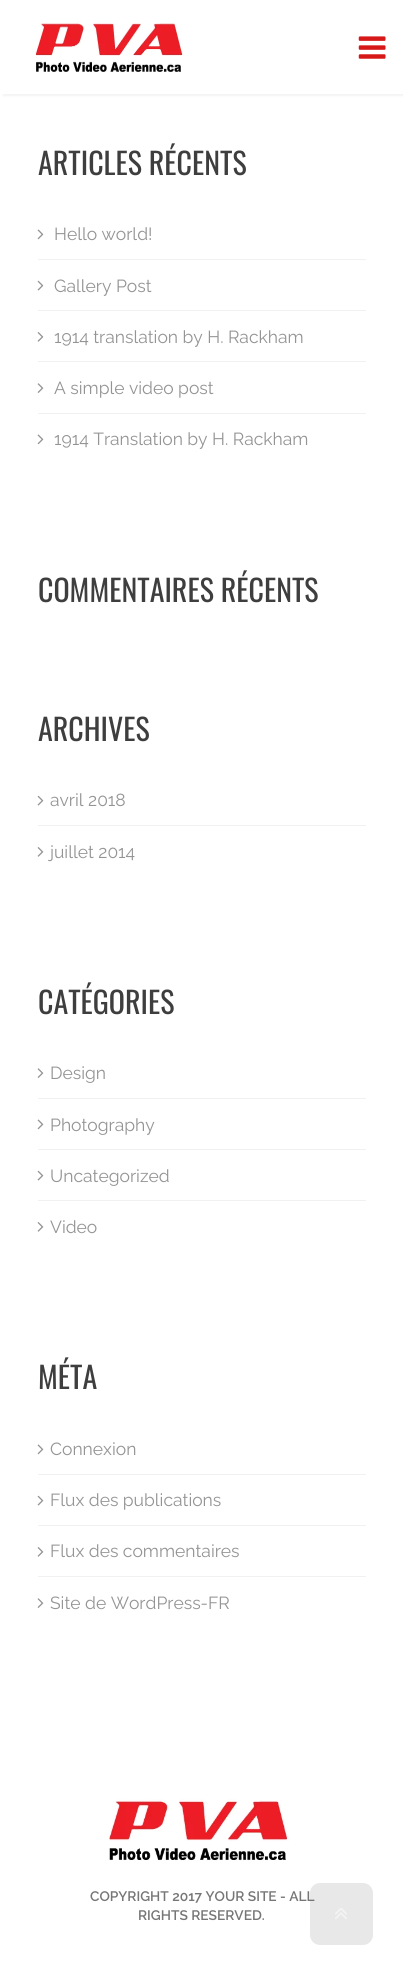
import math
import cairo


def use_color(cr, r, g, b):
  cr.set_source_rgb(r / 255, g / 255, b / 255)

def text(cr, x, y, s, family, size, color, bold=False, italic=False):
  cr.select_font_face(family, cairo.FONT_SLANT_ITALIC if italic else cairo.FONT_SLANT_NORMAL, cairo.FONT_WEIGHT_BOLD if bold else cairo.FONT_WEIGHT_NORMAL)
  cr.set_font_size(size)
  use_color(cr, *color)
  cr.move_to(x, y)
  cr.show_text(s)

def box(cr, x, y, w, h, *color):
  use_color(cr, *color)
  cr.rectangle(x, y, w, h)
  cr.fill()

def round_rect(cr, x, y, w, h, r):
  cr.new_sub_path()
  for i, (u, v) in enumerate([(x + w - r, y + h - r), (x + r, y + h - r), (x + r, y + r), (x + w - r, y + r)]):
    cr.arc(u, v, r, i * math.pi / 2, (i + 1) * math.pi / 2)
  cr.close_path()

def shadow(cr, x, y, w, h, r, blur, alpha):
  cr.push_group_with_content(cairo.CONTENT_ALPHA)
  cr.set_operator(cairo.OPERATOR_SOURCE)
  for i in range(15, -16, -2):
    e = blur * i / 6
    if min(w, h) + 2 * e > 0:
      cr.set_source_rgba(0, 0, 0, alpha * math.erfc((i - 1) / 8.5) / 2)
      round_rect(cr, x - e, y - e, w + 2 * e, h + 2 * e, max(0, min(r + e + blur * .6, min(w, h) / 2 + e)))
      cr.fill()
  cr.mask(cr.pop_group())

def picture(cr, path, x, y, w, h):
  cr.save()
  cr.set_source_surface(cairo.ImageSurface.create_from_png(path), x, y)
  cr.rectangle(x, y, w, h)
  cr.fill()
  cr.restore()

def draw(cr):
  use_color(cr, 255, 255, 255)
  cr.paint()
  use_color(cr, 0, 0, 0)
  shadow(cr, 3, 3, 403, 93, 0, 1, 0.05)
  box(cr, 2, 2, 401, 92, 255, 255, 255)
  picture(cr, "img_01.png", 35, 23, 149, 49)
  picture(cr, "img_02.png", 358, 36, 28, 23)
  box(cr, 38, 259, 328, 1, 241, 241, 241)
  picture(cr, "img_03.png", 37, 229, 7, 11)
  box(cr, 38, 310, 328, 1, 241, 241, 241)
  picture(cr, "img_04.png", 37, 280, 7, 11)
  box(cr, 38, 361, 328, 1, 241, 241, 241)
  picture(cr, "img_05.png", 37, 332, 7, 10)
  box(cr, 38, 413, 328, 1, 241, 241, 241)
  picture(cr, "img_06.png", 37, 383, 7, 10)
  picture(cr, "img_03.png", 37, 434, 7, 11)
  box(cr, 38, 825, 328, 1, 241, 241, 241)
  picture(cr, "img_04.png", 37, 795, 7, 11)
  picture(cr, "img_05.png", 37, 847, 7, 10)
  box(cr, 38, 1098, 328, 1, 241, 241, 241)
  picture(cr, "img_06.png", 37, 1068, 7, 10)
  box(cr, 38, 1149, 328, 1, 241, 241, 241)
  picture(cr, "img_03.png", 37, 1119, 7, 11)
  box(cr, 38, 1200, 328, 1, 241, 241, 241)
  picture(cr, "img_04.png", 37, 1170, 7, 11)
  picture(cr, "img_05.png", 37, 1222, 7, 10)
  box(cr, 38, 1474, 328, 1, 241, 241, 241)
  picture(cr, "img_03.png", 37, 1444, 7, 11)
  box(cr, 38, 1525, 328, 1, 241, 241, 241)
  picture(cr, "img_04.png", 37, 1495, 7, 11)
  box(cr, 38, 1576, 328, 1, 241, 241, 241)
  picture(cr, "img_05.png", 37, 1547, 7, 10)
  picture(cr, "img_06.png", 37, 1598, 7, 10)
  picture(cr, "img_07.png", 107, 1799, 183, 62)
  cr.set_source_rgba(0.098, 0.098, 0.098, 0.1)
  round_rect(cr, 310, 1883, 63, 62, 10)
  cr.fill()
  picture(cr, "img_08.png", 335, 1908, 12, 11)
  text(cr, 38, 175, "ARTICLES RÉCENTS", "Oswald", 30, (62, 62, 62))
  text(cr, 54, 240, "Hello world!", "Raleway", 17.5, (149, 148, 148))
  text(cr, 54, 292, "Gallery Post", "Raleway", 17.5, (149, 148, 148))
  text(cr, 54, 343, "1914 translation by H. Rackham", "Raleway", 17.5, (149, 148, 148))
  text(cr, 54, 394, "A simple video post", "Raleway", 17.5, (149, 148, 148))
  text(cr, 54, 445, "1914 Translation by H. Rackham", "Raleway", 17.5, (149, 148, 148))
  text(cr, 38, 602, "COMMENTAIRES RÉCENTS", "Oswald", 30, (62, 62, 62))
  text(cr, 38, 741, "ARCHIVES", "Oswald", 30, (62, 62, 62))
  text(cr, 50, 806, "avril 2018", "Raleway", 17.5, (149, 148, 148))
  text(cr, 50, 858, "juillet 2014", "Raleway", 17.5, (149, 148, 148))
  text(cr, 38, 1014, "CATÉGORIES", "Oswald", 30, (62, 62, 62))
  text(cr, 50, 1079, "Design", "Raleway", 17.5, (149, 148, 148))
  text(cr, 50, 1131, "Photography", "Raleway", 17.5, (149, 148, 148))
  text(cr, 50, 1182, "Uncategorized", "Raleway", 17.5, (149, 148, 148))
  text(cr, 50, 1233, "Video", "Raleway", 17.5, (149, 148, 148))
  text(cr, 38, 1389, "MÉTA", "Oswald", 30, (62, 62, 62))
  text(cr, 50, 1455, "Connexion", "Raleway", 17.5, (149, 148, 148))
  text(cr, 50, 1506, "Flux des publications", "Raleway", 17.5, (149, 148, 148))
  text(cr, 50, 1557, "Flux des commentaires", "Raleway", 17.5, (149, 148, 148))
  text(cr, 50, 1609, "Site de WordPress-FR", "Raleway", 17.5, (149, 148, 148))
  text(cr, 90, 1901, "COPYRIGHT 2017 YOUR SITE - ALL", "Raleway SemiBold", 13.75, (118, 118, 118))
  text(cr, 138, 1920, "RIGHTS RESERVED.", "Raleway SemiBold", 13.75, (118, 118, 118))


surface = cairo.ImageSurface(cairo.FORMAT_RGB24, 403, 1976)
cr = cairo.Context(surface)
options = cairo.FontOptions()
options.set_hint_metrics(cairo.HINT_METRICS_OFF)
options.set_hint_style(cairo.HINT_STYLE_NONE)
cr.set_font_options(options)
cr.set_miter_limit(4)
draw(cr)
surface.write_to_png("out.png")
